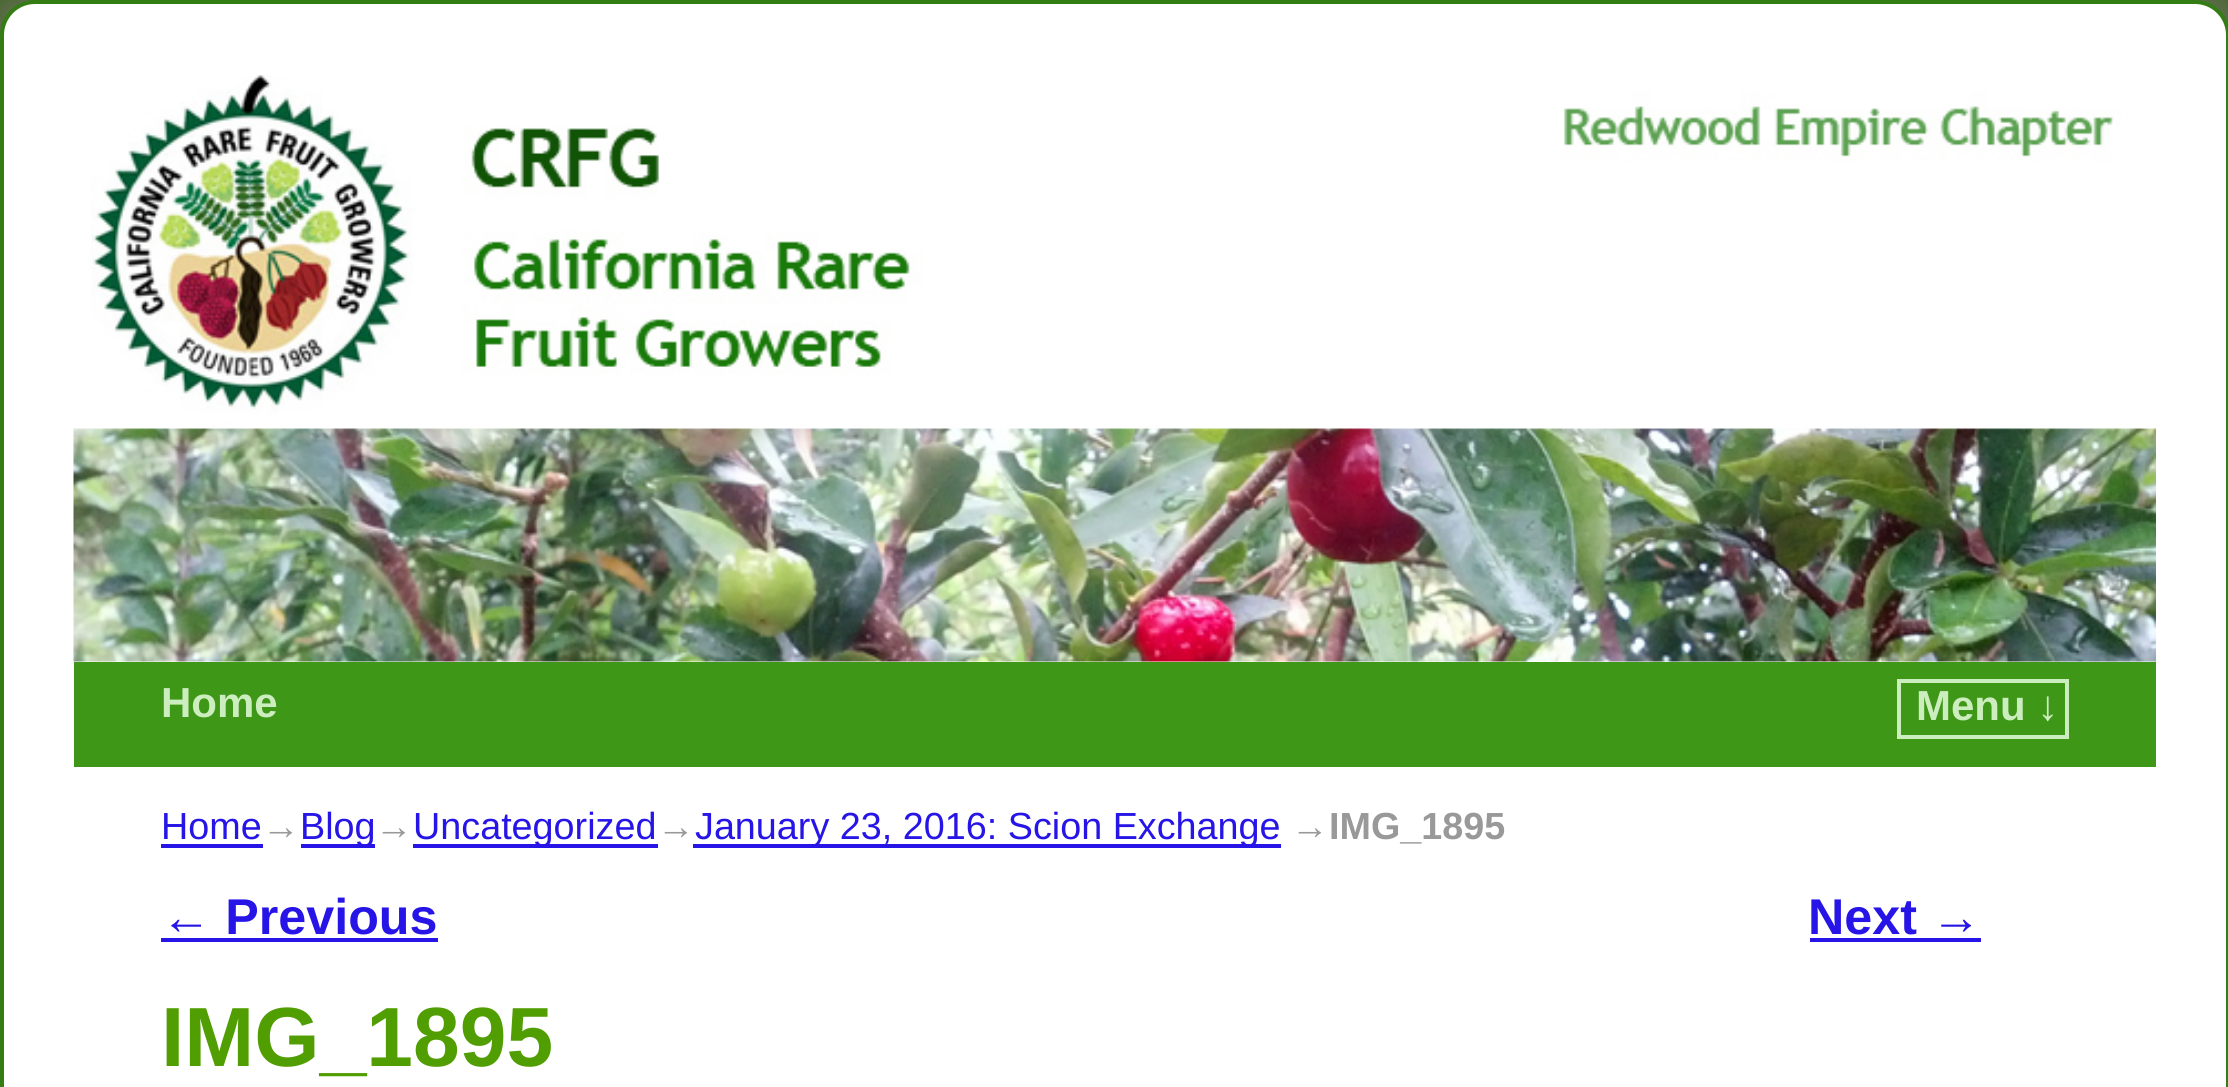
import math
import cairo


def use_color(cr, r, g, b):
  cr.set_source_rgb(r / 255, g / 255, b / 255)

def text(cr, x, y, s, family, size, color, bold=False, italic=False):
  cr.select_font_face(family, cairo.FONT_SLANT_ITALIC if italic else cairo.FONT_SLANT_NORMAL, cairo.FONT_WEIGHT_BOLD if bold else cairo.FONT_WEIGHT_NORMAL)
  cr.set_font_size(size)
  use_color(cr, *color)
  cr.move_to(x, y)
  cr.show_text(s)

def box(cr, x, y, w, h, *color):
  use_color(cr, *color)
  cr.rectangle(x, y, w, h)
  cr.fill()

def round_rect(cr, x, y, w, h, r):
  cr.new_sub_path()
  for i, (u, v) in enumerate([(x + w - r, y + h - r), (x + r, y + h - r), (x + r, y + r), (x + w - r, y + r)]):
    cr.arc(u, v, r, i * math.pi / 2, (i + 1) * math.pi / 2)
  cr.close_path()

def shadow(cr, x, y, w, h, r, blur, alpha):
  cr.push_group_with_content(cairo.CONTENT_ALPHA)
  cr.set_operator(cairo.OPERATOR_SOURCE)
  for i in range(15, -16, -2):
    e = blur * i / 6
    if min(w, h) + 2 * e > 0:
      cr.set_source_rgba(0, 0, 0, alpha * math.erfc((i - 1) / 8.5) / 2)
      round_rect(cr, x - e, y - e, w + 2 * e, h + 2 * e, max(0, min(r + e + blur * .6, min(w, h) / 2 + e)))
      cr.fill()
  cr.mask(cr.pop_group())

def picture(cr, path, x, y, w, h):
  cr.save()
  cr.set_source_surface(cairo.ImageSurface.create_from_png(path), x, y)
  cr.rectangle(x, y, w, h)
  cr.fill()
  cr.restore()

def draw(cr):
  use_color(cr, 153, 204, 102)
  cr.paint()
  picture(cr, "img_01.png", 0, 0, 2228, 35)
  use_color(cr, 127, 127, 127)
  shadow(cr, -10, -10, 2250, 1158, 46, 5, 0.25)
  use_color(cr, 255, 255, 255)
  round_rect(cr, 2, 2, 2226, 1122, 33)
  cr.fill_preserve()
  use_color(cr, 52, 125, 20)
  cr.set_line_width(4)
  cr.stroke()
  picture(cr, "img_02.png", 73, 75, 2083, 587)
  box(cr, 74, 662, 2082, 105, 63, 151, 24)
  cr.rectangle(1899, 681, 168, 56)
  use_color(cr, 204, 237, 190)
  cr.stroke()
  box(cr, 161, 844, 102, 4, 38, 21, 230)
  box(cr, 301, 844, 74, 4, 38, 21, 230)
  box(cr, 413, 844, 245, 4, 38, 21, 230)
  box(cr, 693, 844, 588, 4, 38, 21, 230)
  box(cr, 161, 938, 277, 4, 38, 21, 230)
  box(cr, 1810, 938, 171, 4, 38, 21, 230)
  text(cr, 161, 717, "Home", "Liberation Sans", 42, (204, 237, 190), bold=True)
  text(cr, 1916, 720, "Menu ↓", "Liberation Sans", 42, (204, 237, 190), bold=True)
  text(cr, 161, 839, "Home", "Liberation Sans", 37.75, (38, 21, 230))
  text(cr, 262, 839, "→", "Liberation Sans", 37.75, (153, 153, 153))
  text(cr, 300, 839, "Blog", "Liberation Sans", 37.75, (38, 21, 230))
  text(cr, 375, 839, "→", "Liberation Sans", 37.75, (153, 153, 153))
  text(cr, 413, 839, "Uncategorized", "Liberation Sans", 37.75, (38, 21, 230))
  text(cr, 657, 839, "→", "Liberation Sans", 37.75, (153, 153, 153))
  text(cr, 695, 839, "January 23, 2016: Scion Exchange", "Liberation Sans", 37.75, (38, 21, 230))
  text(cr, 1291, 839, "→", "Liberation Sans", 37.75, (153, 153, 153))
  text(cr, 1329, 839, "IMG_1895", "Liberation Sans", 37.75, (153, 153, 153), bold=True)
  text(cr, 161, 934, "← Previous", "Liberation Sans", 50.25, (38, 21, 230), bold=True)
  text(cr, 1808, 934, "Next →", "Liberation Sans", 50.25, (38, 21, 230), bold=True)
  text(cr, 161, 1066, "IMG_1895", "Liberation Sans", 84, (81, 158, 3), bold=True)


surface = cairo.ImageSurface(cairo.FORMAT_RGB24, 2228, 1087)
cr = cairo.Context(surface)
options = cairo.FontOptions()
options.set_hint_metrics(cairo.HINT_METRICS_OFF)
options.set_hint_style(cairo.HINT_STYLE_NONE)
cr.set_font_options(options)
cr.set_miter_limit(4)
draw(cr)
surface.write_to_png("out.png")
